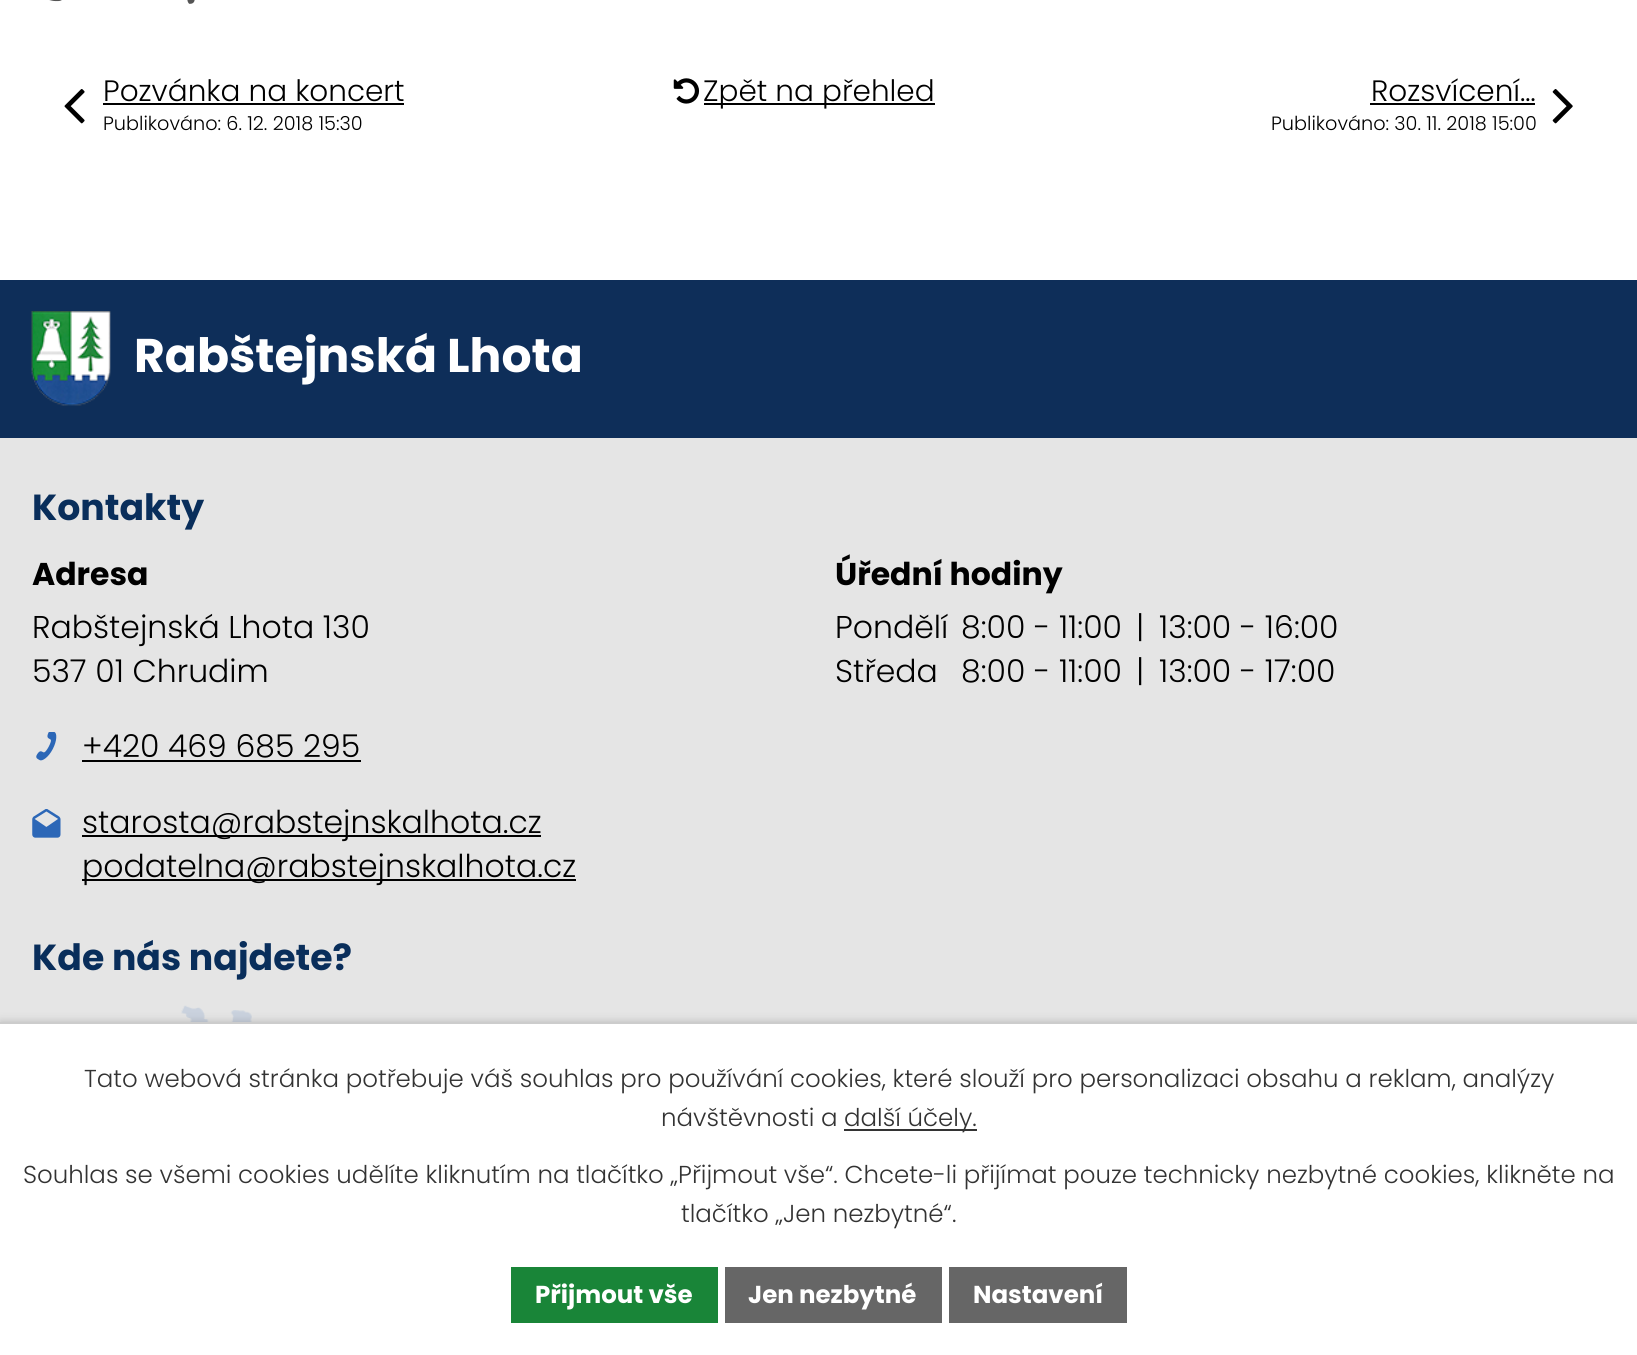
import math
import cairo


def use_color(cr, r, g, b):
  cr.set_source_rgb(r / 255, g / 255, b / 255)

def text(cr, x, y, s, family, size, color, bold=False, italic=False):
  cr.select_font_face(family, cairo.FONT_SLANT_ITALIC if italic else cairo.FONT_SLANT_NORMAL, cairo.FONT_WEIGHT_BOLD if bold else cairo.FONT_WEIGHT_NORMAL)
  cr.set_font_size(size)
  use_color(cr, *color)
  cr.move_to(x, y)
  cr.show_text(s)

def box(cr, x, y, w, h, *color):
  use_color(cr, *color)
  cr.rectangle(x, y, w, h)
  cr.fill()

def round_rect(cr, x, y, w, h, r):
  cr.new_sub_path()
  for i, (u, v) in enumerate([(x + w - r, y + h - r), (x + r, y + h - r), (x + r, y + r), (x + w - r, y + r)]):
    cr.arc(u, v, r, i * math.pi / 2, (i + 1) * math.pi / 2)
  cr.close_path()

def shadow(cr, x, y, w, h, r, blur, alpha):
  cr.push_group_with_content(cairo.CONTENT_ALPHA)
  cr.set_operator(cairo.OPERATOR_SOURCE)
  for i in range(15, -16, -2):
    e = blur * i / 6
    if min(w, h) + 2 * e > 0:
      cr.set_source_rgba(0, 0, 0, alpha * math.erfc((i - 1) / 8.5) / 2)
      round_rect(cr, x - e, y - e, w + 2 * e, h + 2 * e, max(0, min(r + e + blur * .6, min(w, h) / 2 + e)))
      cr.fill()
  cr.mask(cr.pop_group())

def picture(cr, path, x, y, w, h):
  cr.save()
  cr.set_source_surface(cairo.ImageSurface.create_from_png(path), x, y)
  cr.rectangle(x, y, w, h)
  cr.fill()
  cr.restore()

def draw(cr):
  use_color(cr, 255, 255, 255)
  cr.paint()
  picture(cr, "img_01.png", 49, 0, 13, 2)
  picture(cr, "img_02.png", 187, 0, 8, 4)
  picture(cr, "img_03.png", 64, 89, 21, 35)
  box(cr, 103, 103, 301, 2, 0, 0, 0)
  picture(cr, "img_04.png", 673, 78, 27, 26)
  box(cr, 704, 103, 231, 2, 0, 0, 0)
  box(cr, 1370, 103, 165, 2, 0, 0, 0)
  picture(cr, "img_05.png", 1552, 89, 21, 35)
  box(cr, 0, 438, 1637, 584, 229, 229, 229)
  box(cr, 0, 280, 1637, 158, 14, 46, 89)
  picture(cr, "img_06.png", 31, 311, 80, 95)
  picture(cr, "img_07.png", 36, 732, 21, 29)
  box(cr, 82, 760, 279, 2, 0, 0, 0)
  picture(cr, "img_08.png", 32, 809, 29, 29)
  box(cr, 82, 835, 459, 2, 0, 0, 0)
  box(cr, 82, 879, 494, 2, 0, 0, 0)
  picture(cr, "img_09.png", 181, 1005, 71, 17)
  use_color(cr, 0, 0, 0)
  shadow(cr, 0, 1022, 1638, 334, 0, 4.5, 0.2)
  box(cr, 0, 1024, 1637, 331, 255, 255, 255)
  box(cr, 0, 1022, 1637, 2, 204, 204, 204)
  box(cr, 844, 1129, 133, 2, 51, 51, 51)
  box(cr, 511, 1267, 207, 56, 25, 133, 56)
  box(cr, 725, 1267, 217, 56, 102, 102, 102)
  box(cr, 949, 1267, 178, 56, 102, 102, 102)
  text(cr, 103, 101, "Pozvánka na koncert", "Poppins Light", 29.5, (0, 0, 0))
  text(cr, 103, 130, "Publikováno: 6. 12. 2018 15:30", "Poppins Light", 19.25, (0, 0, 0))
  text(cr, 703, 101, "Zpět na přehled", "Poppins Light", 29.5, (0, 0, 0))
  text(cr, 1371, 101, "Rozsvícení…", "Poppins Light", 29.5, (0, 0, 0))
  text(cr, 1271, 130, "Publikováno: 30. 11. 2018 15:00", "Poppins Light", 19.25, (0, 0, 0))
  text(cr, 134, 372, "Rabštejnská Lhota", "Poppins", 47.25, (255, 255, 255), bold=True)
  text(cr, 32, 520, "Kontakty", "Poppins", 36.25, (9, 46, 91), bold=True)
  text(cr, 32, 585, "Adresa", "Poppins", 31.5, (0, 0, 0), bold=True)
  text(cr, 32, 638, "Rabštejnská Lhota 130", "Poppins Light", 31.5, (0, 0, 0))
  text(cr, 32, 682, "537 01 Chrudim", "Poppins Light", 31.5, (0, 0, 0))
  text(cr, 82, 757, "+420 469 685 295", "Poppins Light", 31.5, (0, 0, 0))
  text(cr, 82, 833, "starosta@rabstejnskalhota.cz", "Poppins Light", 31.5, (0, 0, 0))
  text(cr, 82, 877, "podatelna@rabstejnskalhota.cz", "Poppins Light", 31.5, (0, 0, 0))
  text(cr, 835, 585, "Úřední hodiny", "Poppins", 31.5, (0, 0, 0), bold=True)
  text(cr, 835, 638, "Pondělí", "Poppins Light", 31.5, (0, 0, 0))
  text(cr, 961, 638, "8:00 - 11:00", "Poppins Light", 31.5, (0, 0, 0))
  text(cr, 1136, 638, "|", "Poppins Light", 31.5, (0, 0, 0))
  text(cr, 1159, 638, "13:00 - 16:00", "Poppins Light", 31.5, (0, 0, 0))
  text(cr, 835, 682, "Středa", "Poppins Light", 31.5, (0, 0, 0))
  text(cr, 961, 682, "8:00 - 11:00", "Poppins Light", 31.5, (0, 0, 0))
  text(cr, 1136, 682, "|", "Poppins Light", 31.5, (0, 0, 0))
  text(cr, 1159, 682, "13:00 - 17:00", "Poppins Light", 31.5, (0, 0, 0))
  text(cr, 32, 970, "Kde nás najdete?", "Poppins", 36.25, (9, 46, 91), bold=True)
  text(cr, 84, 1087, "Tato webová stránka potřebuje váš souhlas pro používání cookies, které slouží pro personalizaci obsahu a reklam, analýzy", "Poppins Light", 24.5, (51, 51, 51))
  text(cr, 661, 1126, "návštěvnosti a", "Poppins Light", 24.5, (51, 51, 51))
  text(cr, 844, 1126, "další účely.", "Poppins Light", 24.5, (51, 51, 51))
  text(cr, 23, 1183, "Souhlas se všemi cookies udělíte kliknutím na tlačítko „Přijmout vše“. Chcete-li přijímat pouze technicky nezbytné cookies, klikněte na", "Poppins Light", 24.5, (51, 51, 51))
  text(cr, 681, 1222, "tlačítko „Jen nezbytné“.", "Poppins Light", 24.5, (51, 51, 51))
  text(cr, 535, 1303, "Přijmout vše", "Poppins", 24.5, (255, 255, 255), bold=True)
  text(cr, 748, 1303, "Jen nezbytné", "Poppins", 24.5, (255, 255, 255), bold=True)
  text(cr, 973, 1303, "Nastavení", "Poppins", 24.5, (255, 255, 255), bold=True)


surface = cairo.ImageSurface(cairo.FORMAT_RGB24, 1637, 1355)
cr = cairo.Context(surface)
options = cairo.FontOptions()
options.set_hint_metrics(cairo.HINT_METRICS_OFF)
options.set_hint_style(cairo.HINT_STYLE_NONE)
cr.set_font_options(options)
cr.set_miter_limit(4)
draw(cr)
surface.write_to_png("out.png")
